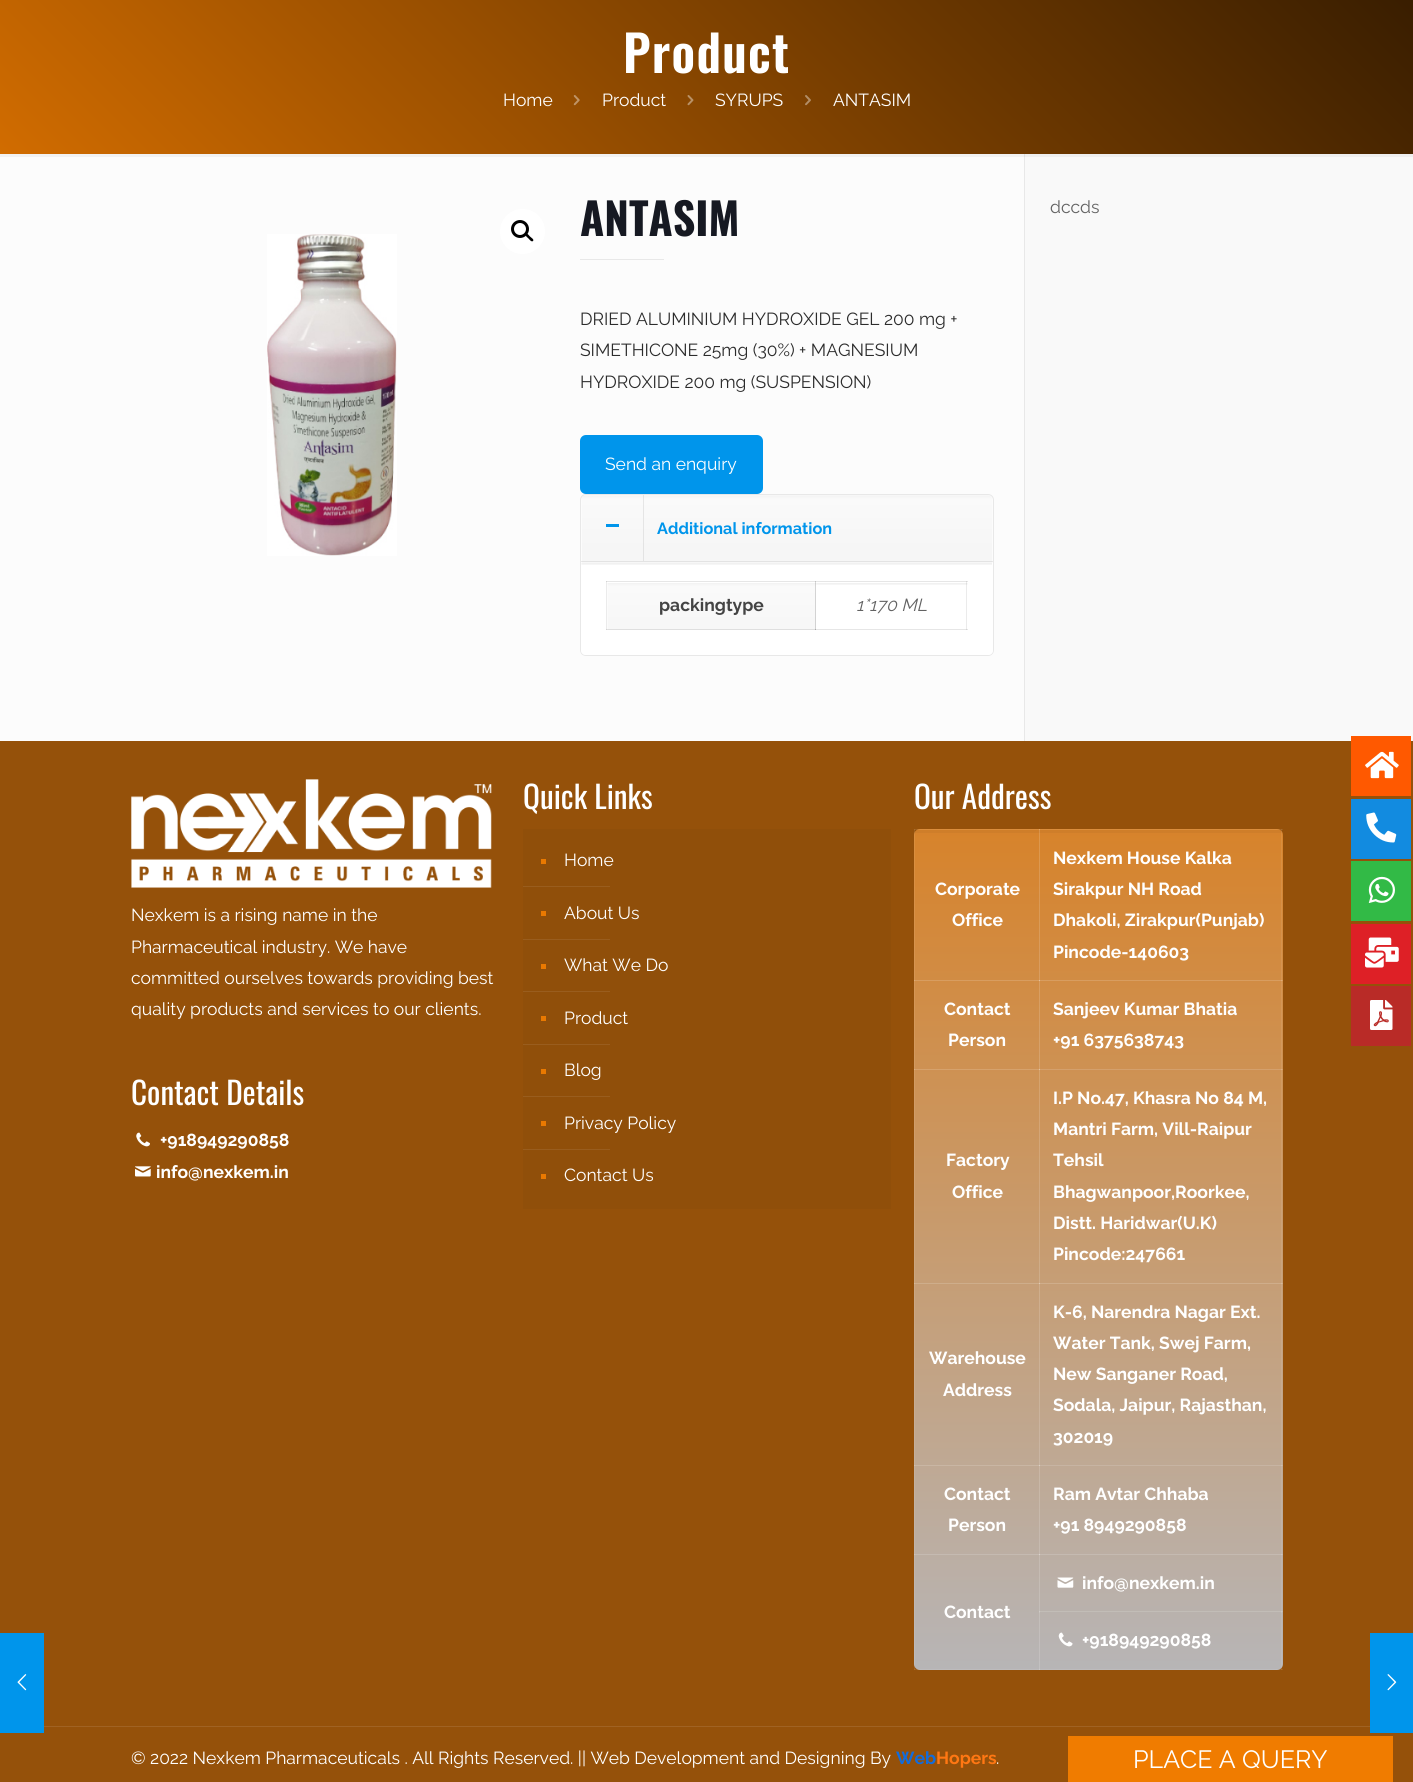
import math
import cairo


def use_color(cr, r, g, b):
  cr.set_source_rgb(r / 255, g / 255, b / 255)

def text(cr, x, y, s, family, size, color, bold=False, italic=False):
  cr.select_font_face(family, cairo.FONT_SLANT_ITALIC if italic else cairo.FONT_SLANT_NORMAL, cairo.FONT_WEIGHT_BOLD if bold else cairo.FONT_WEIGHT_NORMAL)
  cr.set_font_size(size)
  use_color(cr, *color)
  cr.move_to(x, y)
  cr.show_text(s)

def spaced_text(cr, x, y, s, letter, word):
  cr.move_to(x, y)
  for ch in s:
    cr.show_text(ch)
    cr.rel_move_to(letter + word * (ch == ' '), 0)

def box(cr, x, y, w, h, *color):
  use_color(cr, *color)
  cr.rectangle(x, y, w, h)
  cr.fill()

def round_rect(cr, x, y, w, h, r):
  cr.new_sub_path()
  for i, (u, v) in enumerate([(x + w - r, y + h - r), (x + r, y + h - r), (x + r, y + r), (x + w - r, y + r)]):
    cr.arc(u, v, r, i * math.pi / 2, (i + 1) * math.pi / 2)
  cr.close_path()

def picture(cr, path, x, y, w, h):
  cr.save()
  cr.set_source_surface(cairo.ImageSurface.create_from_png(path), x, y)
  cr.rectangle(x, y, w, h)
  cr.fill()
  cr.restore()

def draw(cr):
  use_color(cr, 252, 252, 252)
  cr.paint()
  box(cr, 0, 154, 1024, 3, 242, 242, 242)
  gradient = cairo.LinearGradient(313, 467, 1101, -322)
  gradient.add_color_stop_rgba(0, 0.82, 0.424, 0, 1)
  gradient.add_color_stop_rgba(1, 0.22, 0.114, 0, 1)
  cr.set_source(gradient)
  cr.rectangle(0, 0, 1413, 154)
  cr.fill()
  picture(cr, "img_01.png", 573, 95, 7, 11)
  picture(cr, "img_02.png", 687, 95, 7, 11)
  picture(cr, "img_03.png", 805, 95, 6, 11)
  picture(cr, "img_04.png", 267, 234, 130, 322)
  use_color(cr, 255, 255, 255)
  cr.arc(522.5, 231.5, 22.5, 0, 2 * math.pi)
  cr.fill()
  cr.arc(520, 229, 7.5, 0, 2 * math.pi)
  use_color(cr, 0, 0, 0)
  cr.set_line_width(3)
  cr.stroke()
  cr.new_path()
  cr.move_to(526, 234)
  cr.curve_to(527, 232.5, 529.5, 236, 530, 236.5)
  cr.curve_to(531, 237.5, 534.5, 239.5, 533, 241)
  cr.curve_to(531.5, 242.5, 529, 239, 528.5, 238.5)
  cr.curve_to(527.5, 237.5, 524.5, 235.5, 526, 234)
  cr.close_path()
  cr.fill()
  box(cr, 580, 259, 84, 1, 232, 232, 232)
  use_color(cr, 0, 149, 235)
  round_rect(cr, 580, 435, 183, 59, 6)
  cr.fill()
  round_rect(cr, 580.5, 494.5, 413, 161, 5.5)
  use_color(cr, 232, 232, 232)
  cr.set_line_width(1)
  cr.stroke()
  picture(cr, "img_05.png", 582, 495, 410, 68)
  cr.set_source_rgba(0, 0, 0, 0.08)
  cr.rectangle(581, 561, 412, 1)
  cr.fill()
  box(cr, 606, 524, 13, 3, 0, 149, 235)
  cr.set_source_rgba(0, 0, 0, 0.08)
  cr.rectangle(643, 495, 1, 66)
  cr.fill()
  use_color(cr, 255, 255, 255)
  cr.new_path()
  cr.move_to(581, 563)
  cr.line_to(993, 563)
  cr.line_to(993, 650)
  cr.curve_to(993, 653, 991, 655, 988, 655)
  cr.line_to(586, 655)
  cr.curve_to(583, 655, 581, 653, 581, 650)
  cr.close_path()
  cr.fill()
  picture(cr, "img_06.png", 581, 563, 411, 2)
  box(cr, 606, 581, 362, 1, 230, 230, 230)
  picture(cr, "img_07.png", 607, 583, 209, 47)
  picture(cr, "img_08.png", 816, 583, 152, 2)
  cr.set_source_rgba(0, 0, 0, 0.08)
  cr.rectangle(966, 581, 1, 49)
  cr.fill()
  cr.set_source_rgba(0, 0, 0, 0.1)
  cr.rectangle(815, 629, 153, 1)
  cr.fill()
  cr.set_source_rgba(0, 0, 0, 0.08)
  cr.rectangle(815, 581, 1, 49)
  cr.fill()
  cr.rectangle(815, 581, 1, 49)
  cr.fill()
  cr.set_source_rgba(0, 0, 0, 0.1)
  cr.rectangle(606, 629, 210, 1)
  cr.fill()
  cr.set_source_rgba(0, 0, 0, 0.08)
  cr.rectangle(606, 581, 1, 49)
  cr.fill()
  box(cr, 1024, 154, 1, 587, 232, 232, 232)
  box(cr, 1024, 154, 1, 3, 223, 223, 223)
  box(cr, 1025, 157, 388, 584, 249, 249, 249)
  box(cr, 1025, 154, 388, 3, 239, 239, 239)
  box(cr, 0, 741, 1413, 1041, 149, 81, 10)
  picture(cr, "img_09.png", 131, 779, 361, 109)
  picture(cr, "img_10.png", 136, 1132, 14, 15)
  picture(cr, "img_11.png", 135, 1166, 16, 11)
  box(cr, 523, 829, 368, 380, 144, 79, 10)
  box(cr, 541, 859, 5, 5, 233, 121, 1)
  box(cr, 523, 886, 87, 1, 153, 93, 30)
  box(cr, 541, 911, 5, 5, 233, 121, 1)
  box(cr, 523, 939, 87, 1, 153, 93, 30)
  box(cr, 541, 964, 5, 5, 233, 121, 1)
  box(cr, 523, 991, 87, 1, 153, 93, 30)
  box(cr, 541, 1016, 5, 5, 233, 121, 1)
  box(cr, 523, 1044, 87, 1, 153, 93, 30)
  box(cr, 541, 1069, 5, 5, 233, 121, 1)
  box(cr, 523, 1096, 87, 1, 153, 93, 30)
  box(cr, 541, 1121, 5, 5, 233, 121, 1)
  box(cr, 523, 1149, 87, 1, 153, 93, 30)
  box(cr, 541, 1174, 5, 5, 233, 121, 1)
  gradient = cairo.LinearGradient(1098, 829, 1098, 1670)
  gradient.add_color_stop_rgba(0, 0.843, 0.514, 0.169, 1)
  gradient.add_color_stop_rgba(1, 0.718, 0.71, 0.714, 1)
  cr.set_source(gradient)
  round_rect(cr, 914, 829, 369, 841, 6)
  cr.fill()
  cr.set_source_rgba(0, 0, 0, 0.04)
  cr.rectangle(915, 830, 125, 3)
  cr.fill()
  cr.set_source_rgba(1, 1, 1, 0.08)
  cr.rectangle(1039, 829, 244, 1)
  cr.fill()
  cr.set_source_rgba(0, 0, 0, 0.04)
  cr.rectangle(1040, 830, 242, 3)
  cr.fill()
  box(cr, 1039, 980, 244, 1, 213, 149, 83)
  box(cr, 1039, 1069, 244, 1, 208, 152, 96)
  box(cr, 1039, 1283, 244, 1, 203, 166, 129)
  box(cr, 1039, 1465, 244, 1, 194, 174, 155)
  box(cr, 1039, 1554, 244, 1, 192, 180, 170)
  box(cr, 1039, 1611, 244, 1, 189, 183, 177)
  cr.set_source_rgba(1, 1, 1, 0.08)
  cr.rectangle(1281, 1611, 1, 59)
  cr.fill()
  cr.rectangle(1281, 1554, 1, 59)
  cr.fill()
  cr.rectangle(1281, 1465, 1, 90)
  cr.fill()
  cr.rectangle(1281, 1283, 1, 183)
  cr.fill()
  cr.rectangle(1281, 1069, 1, 215)
  cr.fill()
  cr.rectangle(1281, 980, 1, 90)
  cr.fill()
  cr.rectangle(1281, 829, 1, 152)
  cr.fill()
  cr.rectangle(1039, 1669, 244, 1)
  cr.fill()
  cr.rectangle(1039, 1611, 1, 59)
  cr.fill()
  cr.rectangle(1039, 1611, 244, 1)
  cr.fill()
  cr.rectangle(1039, 1554, 1, 59)
  cr.fill()
  cr.rectangle(914, 1554, 126, 1)
  cr.fill()
  cr.rectangle(1039, 1554, 1, 116)
  cr.fill()
  cr.rectangle(1039, 1554, 244, 1)
  cr.fill()
  cr.rectangle(1039, 1465, 1, 90)
  cr.fill()
  cr.rectangle(914, 1465, 126, 1)
  cr.fill()
  cr.rectangle(1039, 1465, 1, 90)
  cr.fill()
  cr.rectangle(1039, 1465, 244, 1)
  cr.fill()
  cr.rectangle(1039, 1283, 1, 183)
  cr.fill()
  cr.rectangle(914, 1283, 126, 1)
  cr.fill()
  cr.rectangle(1039, 1283, 1, 183)
  cr.fill()
  cr.rectangle(1039, 1283, 244, 1)
  cr.fill()
  cr.rectangle(1039, 1069, 1, 215)
  cr.fill()
  cr.rectangle(914, 1069, 126, 1)
  cr.fill()
  cr.rectangle(1039, 1069, 1, 215)
  cr.fill()
  cr.rectangle(1039, 1069, 244, 1)
  cr.fill()
  cr.rectangle(1039, 980, 1, 90)
  cr.fill()
  cr.rectangle(914, 980, 126, 1)
  cr.fill()
  cr.rectangle(1039, 980, 1, 90)
  cr.fill()
  cr.rectangle(1039, 980, 244, 1)
  cr.fill()
  cr.rectangle(1039, 829, 1, 152)
  cr.fill()
  cr.rectangle(914, 829, 126, 1)
  cr.fill()
  cr.rectangle(1039, 829, 1, 152)
  cr.fill()
  cr.rectangle(914, 1669, 126, 1)
  cr.fill()
  cr.rectangle(914, 1554, 1, 116)
  cr.fill()
  cr.rectangle(914, 1554, 126, 1)
  cr.fill()
  cr.rectangle(914, 1465, 1, 90)
  cr.fill()
  cr.rectangle(914, 1465, 126, 1)
  cr.fill()
  cr.rectangle(914, 1283, 1, 183)
  cr.fill()
  cr.rectangle(914, 1283, 126, 1)
  cr.fill()
  cr.rectangle(914, 1069, 1, 215)
  cr.fill()
  cr.rectangle(914, 1069, 126, 1)
  cr.fill()
  cr.rectangle(914, 980, 1, 90)
  cr.fill()
  cr.rectangle(914, 980, 126, 1)
  cr.fill()
  cr.rectangle(914, 829, 1, 152)
  cr.fill()
  picture(cr, "img_12.png", 1057, 1577, 17, 11)
  picture(cr, "img_13.png", 1058, 1632, 15, 15)
  box(cr, 44, 1726, 1326, 1, 160, 98, 35)
  box(cr, 1068, 1736, 325, 46, 240, 124, 0)
  box(cr, 1351, 736, 60, 60, 255, 89, 0)
  picture(cr, "img_14.png", 1365, 751, 34, 28)
  box(cr, 1351, 799, 60, 60, 18, 139, 224)
  picture(cr, "img_15.png", 1366, 812, 31, 31)
  box(cr, 1351, 861, 60, 60, 50, 186, 70)
  picture(cr, "img_16.png", 1368, 876, 27, 27)
  box(cr, 1351, 924, 60, 60, 222, 32, 38)
  picture(cr, "img_17.png", 1365, 937, 34, 31)
  box(cr, 1351, 986, 60, 60, 185, 43, 39)
  picture(cr, "img_18.png", 1370, 1000, 23, 30)
  box(cr, 0, 1633, 44, 100, 0, 149, 235)
  picture(cr, "img_19.png", 17, 1674, 10, 17)
  box(cr, 1370, 1633, 43, 100, 0, 149, 235)
  picture(cr, "img_20.png", 1387, 1674, 10, 17)
  cr.select_font_face("Oswald SemiBold")
  cr.set_font_size(50)
  use_color(cr, 255, 255, 255)
  spaced_text(cr, 623, 73, "Product", 1.25, 0)
  text(cr, 503, 106, "Home", "Raleway", 17.5, (255, 255, 255))
  text(cr, 602, 106, "Product", "Raleway", 17.5, (255, 255, 255))
  text(cr, 715, 106, "SYRUPS", "Raleway", 17.5, (255, 255, 255))
  text(cr, 833, 106, "ANTASIM", "Raleway", 17.5, (255, 255, 255))
  text(cr, 580, 236, "ANTASIM", "Oswald", 44, (22, 25, 34), bold=True)
  text(cr, 580, 325, "DRIED ALUMINIUM HYDROXIDE GEL 200 mg +", "Raleway", 17.5, (44, 44, 44))
  text(cr, 580, 356, "SIMETHICONE 25mg (30%) + MAGNESIUM", "Raleway", 17.5, (44, 44, 44))
  text(cr, 580, 388, "HYDROXIDE 200 mg (SUSPENSION)", "Raleway", 17.5, (44, 44, 44))
  text(cr, 605, 470, "Send an enquiry", "Raleway", 17.5, (255, 255, 255))
  text(cr, 657, 534, "Additional information", "Raleway", 16.25, (0, 149, 235), bold=True)
  text(cr, 659, 611, "packingtype", "Raleway", 17.5, (68, 68, 68), bold=True)
  text(cr, 856, 611, "1*170 ML", "Raleway", 17.5, (98, 98, 98), italic=True)
  text(cr, 1050, 213, "dccds", "Raleway", 17.5, (98, 98, 98))
  text(cr, 131, 921, "Nexkem is a rising name in the", "Raleway", 17.5, (255, 255, 255))
  text(cr, 131, 953, "Pharmaceutical industry. We have", "Raleway", 17.5, (255, 255, 255))
  text(cr, 131, 984, "committed ourselves towards providing best", "Raleway", 17.5, (255, 255, 255))
  text(cr, 131, 1015, "quality products and services to our clients.", "Raleway", 17.5, (255, 255, 255))
  text(cr, 131, 1105, "Contact Details", "Oswald", 31.25, (255, 255, 255))
  text(cr, 160, 1146, "+918949290858", "Raleway", 17.5, (255, 255, 255), bold=True)
  text(cr, 156, 1178, "info@nexkem.in", "Raleway", 17.5, (255, 255, 255), bold=True)
  text(cr, 523, 809, "Quick Links", "Oswald", 31.25, (255, 255, 255))
  text(cr, 564, 866, "Home", "Raleway", 17.5, (255, 255, 255))
  text(cr, 564, 919, "About Us", "Raleway", 17.5, (255, 255, 255))
  text(cr, 564, 971, "What We Do", "Raleway", 17.5, (255, 255, 255))
  text(cr, 564, 1024, "Product", "Raleway", 17.5, (255, 255, 255))
  text(cr, 564, 1076, "Blog", "Raleway", 17.5, (255, 255, 255))
  text(cr, 564, 1129, "Privacy Policy", "Raleway", 17.5, (255, 255, 255))
  text(cr, 564, 1181, "Contact Us", "Raleway", 17.5, (255, 255, 255))
  text(cr, 914, 809, "Our Address", "Oswald", 31.25, (255, 255, 255))
  text(cr, 935, 895, "Corporate", "Raleway", 17.5, (255, 255, 255), bold=True)
  text(cr, 952, 926, "Office", "Raleway", 17.5, (255, 255, 255), bold=True)
  text(cr, 1053, 864, "Nexkem House Kalka", "Raleway", 17.5, (255, 255, 255), bold=True)
  text(cr, 1053, 895, "Sirakpur NH Road", "Raleway", 17.5, (255, 255, 255), bold=True)
  text(cr, 1053, 926, "Dhakoli, Zirakpur(Punjab)", "Raleway", 17.5, (255, 255, 255), bold=True)
  text(cr, 1053, 958, "Pincode-140603", "Raleway", 17.5, (255, 255, 255), bold=True)
  text(cr, 944, 1015, "Contact", "Raleway", 17.5, (255, 255, 255), bold=True)
  text(cr, 948, 1046, "Person", "Raleway", 17.5, (255, 255, 255), bold=True)
  text(cr, 1053, 1015, "Sanjeev Kumar Bhatia", "Raleway", 17.5, (255, 255, 255), bold=True)
  text(cr, 1053, 1046, "+91 6375638743", "Raleway", 17.5, (255, 255, 255), bold=True)
  text(cr, 946, 1166, "Factory", "Raleway", 17.5, (255, 255, 255), bold=True)
  text(cr, 952, 1198, "Office", "Raleway", 17.5, (255, 255, 255), bold=True)
  text(cr, 1053, 1104, "I.P No.47, Khasra No 84 M,", "Raleway", 17.5, (255, 255, 255), bold=True)
  text(cr, 1053, 1135, "Mantri Farm, Vill-Raipur", "Raleway", 17.5, (255, 255, 255), bold=True)
  text(cr, 1053, 1166, "Tehsil", "Raleway", 17.5, (255, 255, 255), bold=True)
  text(cr, 1053, 1198, "Bhagwanpoor,Roorkee,", "Raleway", 17.5, (255, 255, 255), bold=True)
  text(cr, 1053, 1229, "Distt. Haridwar(U.K)", "Raleway", 17.5, (255, 255, 255), bold=True)
  text(cr, 1053, 1260, "Pincode:247661", "Raleway", 17.5, (255, 255, 255), bold=True)
  text(cr, 929, 1364, "Warehouse", "Raleway", 17.5, (255, 255, 255), bold=True)
  text(cr, 943, 1396, "Address", "Raleway", 17.5, (255, 255, 255), bold=True)
  text(cr, 1053, 1318, "K-6, Narendra Nagar Ext.", "Raleway", 17.5, (255, 255, 255), bold=True)
  text(cr, 1053, 1349, "Water Tank, Swej Farm,", "Raleway", 17.5, (255, 255, 255), bold=True)
  text(cr, 1053, 1380, "New Sanganer Road,", "Raleway", 17.5, (255, 255, 255), bold=True)
  text(cr, 1053, 1411, "Sodala, Jaipur, Rajasthan,", "Raleway", 17.5, (255, 255, 255), bold=True)
  text(cr, 1053, 1443, "302019", "Raleway", 17.5, (255, 255, 255), bold=True)
  text(cr, 944, 1500, "Contact", "Raleway", 17.5, (255, 255, 255), bold=True)
  text(cr, 948, 1531, "Person", "Raleway", 17.5, (255, 255, 255), bold=True)
  text(cr, 1053, 1500, "Ram Avtar Chhaba", "Raleway", 17.5, (255, 255, 255), bold=True)
  text(cr, 1053, 1531, "+91 8949290858", "Raleway", 17.5, (255, 255, 255), bold=True)
  text(cr, 1082, 1589, "info@nexkem.in", "Raleway", 17.5, (255, 255, 255), bold=True)
  text(cr, 944, 1618, "Contact", "Raleway", 17.5, (255, 255, 255), bold=True)
  text(cr, 1082, 1646, "+918949290858", "Raleway", 17.5, (255, 255, 255), bold=True)
  text(cr, 131, 1764, "© 2022 Nexkem Pharmaceuticals . All Rights Reserved. || Web Development and Designing By", "Raleway", 17.5, (255, 255, 255))
  text(cr, 896, 1764, "Web", "Raleway", 17.5, (18, 108, 220), bold=True)
  text(cr, 936, 1764, "Hopers", "Raleway", 17.5, (255, 119, 19), bold=True)
  text(cr, 996, 1764, ".", "Raleway", 17.5, (255, 255, 255))
  text(cr, 1133, 1768, "PLACE A QUERY", "Raleway", 25, (255, 255, 255))


surface = cairo.ImageSurface(cairo.FORMAT_RGB24, 1413, 1782)
cr = cairo.Context(surface)
options = cairo.FontOptions()
options.set_hint_metrics(cairo.HINT_METRICS_OFF)
options.set_hint_style(cairo.HINT_STYLE_NONE)
cr.set_font_options(options)
cr.set_miter_limit(4)
draw(cr)
surface.write_to_png("out.png")
